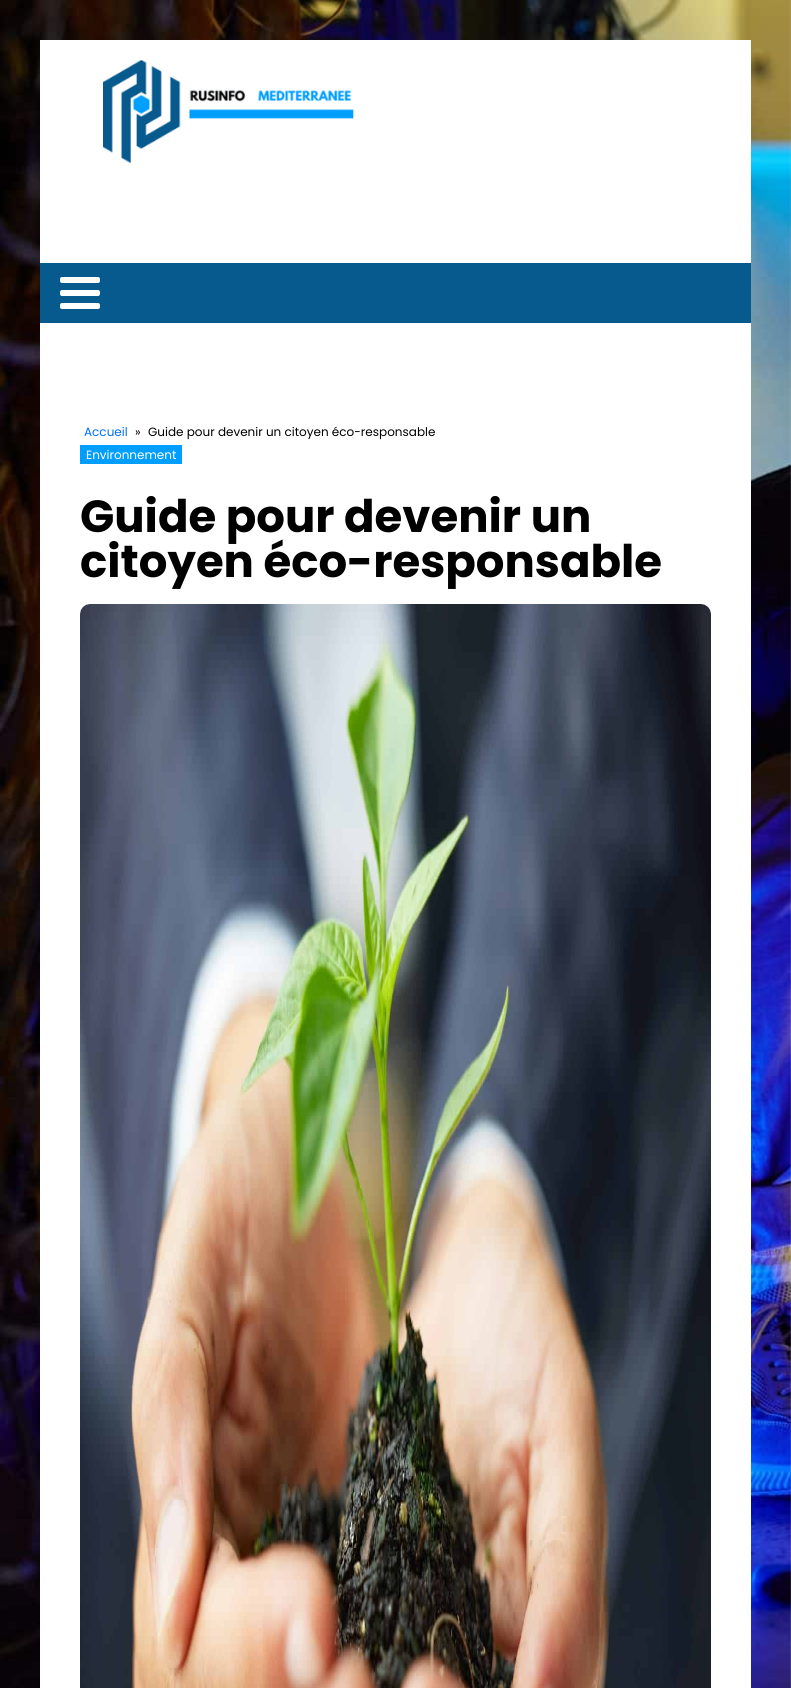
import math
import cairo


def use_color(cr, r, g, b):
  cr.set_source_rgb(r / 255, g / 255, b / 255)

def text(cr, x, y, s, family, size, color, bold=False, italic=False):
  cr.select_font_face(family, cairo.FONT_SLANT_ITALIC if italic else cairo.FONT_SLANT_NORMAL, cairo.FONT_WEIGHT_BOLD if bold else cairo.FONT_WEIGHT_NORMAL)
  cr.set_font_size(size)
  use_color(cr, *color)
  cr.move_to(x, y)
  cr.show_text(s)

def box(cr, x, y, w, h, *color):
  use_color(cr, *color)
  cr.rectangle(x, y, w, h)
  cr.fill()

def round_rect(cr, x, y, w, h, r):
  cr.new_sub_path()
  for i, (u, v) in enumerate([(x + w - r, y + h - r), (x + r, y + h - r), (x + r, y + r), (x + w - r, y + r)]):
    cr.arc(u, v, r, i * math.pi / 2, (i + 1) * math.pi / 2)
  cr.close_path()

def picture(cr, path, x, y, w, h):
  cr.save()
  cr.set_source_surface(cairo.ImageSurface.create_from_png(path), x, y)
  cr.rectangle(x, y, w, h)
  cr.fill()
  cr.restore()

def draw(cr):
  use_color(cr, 255, 255, 255)
  cr.paint()
  picture(cr, "img_01.png", 0, 0, 791, 1688)
  box(cr, 40, 40, 711, 1648, 255, 255, 255)
  picture(cr, "img_02.png", 103, 60, 252, 103)
  box(cr, 40, 263, 711, 60, 6, 90, 141)
  use_color(cr, 255, 255, 255)
  round_rect(cr, 60, 277, 40, 6, 2)
  cr.fill()
  round_rect(cr, 60, 290, 40, 6, 2)
  cr.fill()
  round_rect(cr, 60, 303, 40, 6, 2)
  cr.fill()
  box(cr, 80, 445, 102, 19, 0, 159, 255)
  picture(cr, "img_03.png", 80, 604, 631, 1084)
  text(cr, 84, 436, "Accueil", "Poppins", 12, (0, 110, 255))
  text(cr, 135, 436, "»", "Poppins", 12, (0, 0, 0))
  text(cr, 148, 436, "Guide pour devenir un citoyen éco-responsable", "Poppins", 12, (0, 0, 0))
  text(cr, 86, 459, "Environnement", "Poppins", 12, (255, 255, 255))
  text(cr, 80, 532, "Guide pour devenir un", "Poppins", 45, (0, 0, 0), bold=True)
  text(cr, 80, 577, "citoyen éco-responsable", "Poppins", 45, (0, 0, 0), bold=True)


surface = cairo.ImageSurface(cairo.FORMAT_RGB24, 791, 1688)
cr = cairo.Context(surface)
options = cairo.FontOptions()
options.set_hint_metrics(cairo.HINT_METRICS_OFF)
options.set_hint_style(cairo.HINT_STYLE_NONE)
cr.set_font_options(options)
cr.set_miter_limit(4)
draw(cr)
surface.write_to_png("out.png")
